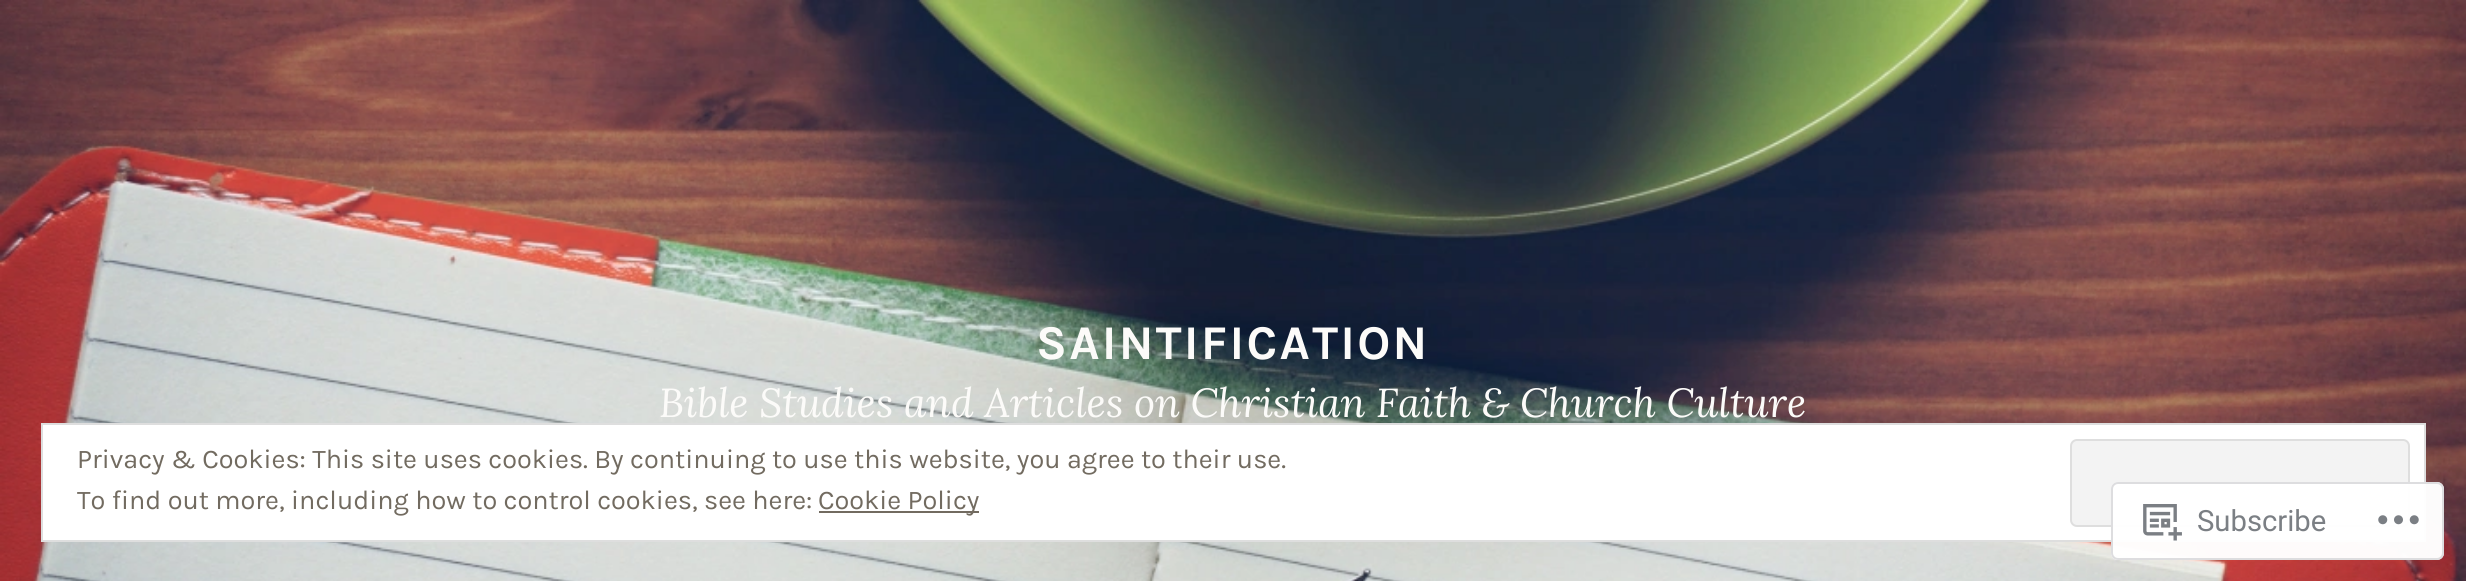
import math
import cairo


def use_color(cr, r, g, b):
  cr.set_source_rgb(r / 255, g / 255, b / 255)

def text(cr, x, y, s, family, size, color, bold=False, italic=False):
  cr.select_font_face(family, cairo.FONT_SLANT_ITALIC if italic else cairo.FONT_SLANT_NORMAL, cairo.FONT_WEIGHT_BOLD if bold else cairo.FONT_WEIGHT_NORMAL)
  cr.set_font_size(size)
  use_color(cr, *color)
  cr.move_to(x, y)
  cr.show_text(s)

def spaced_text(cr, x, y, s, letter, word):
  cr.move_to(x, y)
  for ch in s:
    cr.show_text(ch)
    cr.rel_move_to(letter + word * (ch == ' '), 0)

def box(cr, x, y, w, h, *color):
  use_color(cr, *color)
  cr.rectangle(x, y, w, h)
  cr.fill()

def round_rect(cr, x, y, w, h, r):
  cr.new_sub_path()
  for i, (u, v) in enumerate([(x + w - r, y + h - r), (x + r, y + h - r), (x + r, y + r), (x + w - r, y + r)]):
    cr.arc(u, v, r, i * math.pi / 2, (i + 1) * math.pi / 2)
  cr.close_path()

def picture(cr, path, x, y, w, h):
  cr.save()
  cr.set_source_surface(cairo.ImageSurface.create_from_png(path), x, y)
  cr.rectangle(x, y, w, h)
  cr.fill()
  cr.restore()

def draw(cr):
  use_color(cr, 255, 255, 255)
  cr.paint()
  picture(cr, "img_01.png", 0, 0, 2466, 581)
  use_color(cr, 255, 255, 255)
  cr.rectangle(42, 424, 2383, 117)
  cr.fill_preserve()
  use_color(cr, 222, 222, 222)
  cr.stroke()
  use_color(cr, 243, 243, 243)
  round_rect(cr, 2071, 440, 338, 86, 6)
  cr.fill_preserve()
  use_color(cr, 222, 222, 222)
  cr.stroke()
  box(cr, 819, 511, 160, 2, 114, 107, 96)
  cr.set_source_rgba(1, 1, 1, 0.98)
  round_rect(cr, 2111, 482, 333, 78, 7)
  cr.fill()
  round_rect(cr, 2112, 483, 331, 76, 6)
  cr.set_source_rgba(0.863, 0.863, 0.871, 0.98)
  cr.stroke()
  picture(cr, "img_02.png", 2143, 504, 39, 37)
  picture(cr, "img_03.png", 2378, 515, 41, 10)
  cr.select_font_face("Karla", cairo.FONT_SLANT_NORMAL, cairo.FONT_WEIGHT_BOLD)
  cr.set_font_size(48.5)
  use_color(cr, 252, 251, 249)
  spaced_text(cr, 1036, 359, "SAINTIFICATION", 2.25, 0)
  text(cr, 659, 417, "Bible Studies and Articles on Christian Faith & Church Culture", "Lora", 40.5, (252, 251, 249), italic=True)
  text(cr, 77, 468, "Privacy & Cookies: This site uses cookies. By continuing to use this website, you agree to their use.", "Karla", 27, (114, 107, 96))
  text(cr, 77, 509, "To find out more, including how to control cookies, see here:", "Karla", 27, (114, 107, 96))
  text(cr, 818, 509, "Cookie Policy", "Karla", 27, (114, 107, 96))
  text(cr, 2197, 531, "Subscribe", "Roboto", 29.25, (123, 127, 132))


surface = cairo.ImageSurface(cairo.FORMAT_RGB24, 2466, 581)
cr = cairo.Context(surface)
options = cairo.FontOptions()
options.set_hint_metrics(cairo.HINT_METRICS_OFF)
options.set_hint_style(cairo.HINT_STYLE_NONE)
cr.set_font_options(options)
cr.set_miter_limit(4)
draw(cr)
surface.write_to_png("out.png")
